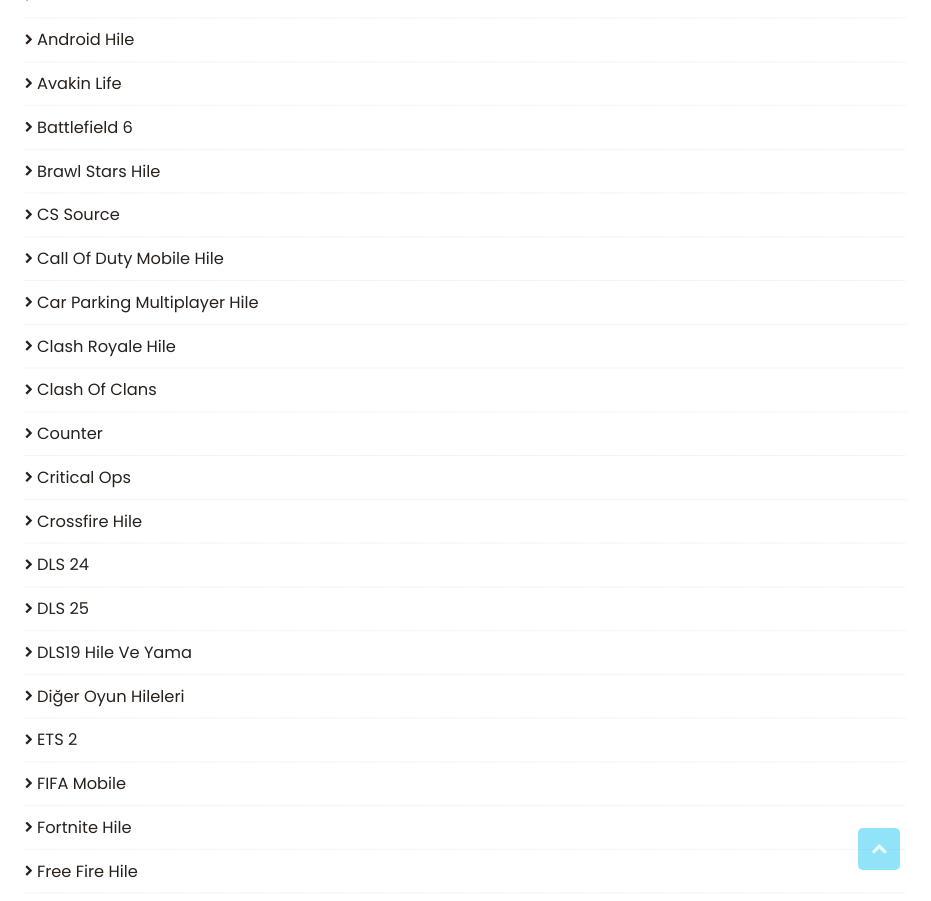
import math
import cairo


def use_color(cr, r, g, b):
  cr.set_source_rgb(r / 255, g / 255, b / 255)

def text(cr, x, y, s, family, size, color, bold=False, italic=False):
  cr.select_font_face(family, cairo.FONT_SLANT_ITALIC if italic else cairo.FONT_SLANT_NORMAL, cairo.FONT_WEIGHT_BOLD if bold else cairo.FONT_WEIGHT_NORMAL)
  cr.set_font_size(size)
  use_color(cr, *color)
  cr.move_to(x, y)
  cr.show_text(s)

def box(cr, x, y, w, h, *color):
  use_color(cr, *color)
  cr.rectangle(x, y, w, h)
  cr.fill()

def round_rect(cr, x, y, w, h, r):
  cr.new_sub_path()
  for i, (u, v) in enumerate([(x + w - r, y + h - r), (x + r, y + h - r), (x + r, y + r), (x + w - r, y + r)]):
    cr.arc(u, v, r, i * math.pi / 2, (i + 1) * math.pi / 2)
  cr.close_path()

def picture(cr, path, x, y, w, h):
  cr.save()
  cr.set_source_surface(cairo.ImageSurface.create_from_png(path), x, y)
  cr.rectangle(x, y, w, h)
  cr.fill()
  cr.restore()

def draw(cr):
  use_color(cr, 255, 255, 255)
  cr.paint()
  box(cr, 26, 0, 2, 1, 190, 188, 187)
  cr.new_path()
  cr.move_to(25, 18)
  cr.line_to(906, 18)
  use_color(cr, 235, 235, 235)
  cr.set_line_width(1.2)
  cr.set_dash([1.25, 1.25])
  cr.stroke()
  picture(cr, "img_01.png", 25, 34, 7, 11)
  cr.new_path()
  cr.move_to(25, 62)
  cr.line_to(906, 62)
  cr.stroke()
  picture(cr, "img_02.png", 25, 78, 7, 11)
  cr.new_path()
  cr.move_to(25, 105.5)
  cr.line_to(906, 105.5)
  cr.stroke()
  picture(cr, "img_03.png", 25, 121, 7, 11)
  cr.new_path()
  cr.move_to(25, 149.5)
  cr.line_to(906, 149.5)
  cr.stroke()
  picture(cr, "img_04.png", 25, 165, 7, 11)
  cr.new_path()
  cr.move_to(25, 193)
  cr.line_to(906, 193)
  cr.stroke()
  picture(cr, "img_01.png", 25, 209, 7, 11)
  cr.new_path()
  cr.move_to(25, 237)
  cr.line_to(906, 237)
  cr.stroke()
  picture(cr, "img_02.png", 25, 253, 7, 11)
  cr.new_path()
  cr.move_to(25, 280.5)
  cr.line_to(906, 280.5)
  cr.stroke()
  picture(cr, "img_03.png", 25, 296, 7, 11)
  cr.new_path()
  cr.move_to(25, 324.5)
  cr.line_to(906, 324.5)
  cr.stroke()
  picture(cr, "img_04.png", 25, 340, 7, 11)
  cr.new_path()
  cr.move_to(25, 368)
  cr.line_to(906, 368)
  cr.stroke()
  picture(cr, "img_01.png", 25, 384, 7, 11)
  cr.new_path()
  cr.move_to(25, 412)
  cr.line_to(906, 412)
  cr.stroke()
  picture(cr, "img_02.png", 25, 428, 7, 11)
  cr.new_path()
  cr.move_to(25, 455.5)
  cr.line_to(906, 455.5)
  cr.stroke()
  picture(cr, "img_03.png", 25, 471, 7, 11)
  cr.new_path()
  cr.move_to(25, 499.5)
  cr.line_to(906, 499.5)
  cr.stroke()
  picture(cr, "img_04.png", 25, 515, 7, 11)
  cr.new_path()
  cr.move_to(25, 543)
  cr.line_to(906, 543)
  cr.stroke()
  picture(cr, "img_01.png", 25, 559, 7, 11)
  cr.new_path()
  cr.move_to(25, 587)
  cr.line_to(906, 587)
  cr.stroke()
  picture(cr, "img_02.png", 25, 603, 7, 11)
  cr.new_path()
  cr.move_to(25, 630.5)
  cr.line_to(906, 630.5)
  cr.stroke()
  picture(cr, "img_03.png", 25, 646, 7, 11)
  cr.new_path()
  cr.move_to(25, 674.5)
  cr.line_to(906, 674.5)
  cr.stroke()
  picture(cr, "img_04.png", 25, 690, 7, 11)
  cr.new_path()
  cr.move_to(25, 718)
  cr.line_to(906, 718)
  cr.stroke()
  picture(cr, "img_01.png", 25, 734, 7, 11)
  cr.new_path()
  cr.move_to(25, 762)
  cr.line_to(906, 762)
  cr.stroke()
  picture(cr, "img_02.png", 25, 778, 7, 11)
  cr.new_path()
  cr.move_to(25, 805.5)
  cr.line_to(906, 805.5)
  cr.stroke()
  picture(cr, "img_03.png", 25, 821, 7, 11)
  cr.new_path()
  cr.move_to(25, 849.5)
  cr.line_to(906, 849.5)
  cr.stroke()
  picture(cr, "img_04.png", 25, 865, 7, 11)
  cr.new_path()
  cr.move_to(25, 893)
  cr.line_to(906, 893)
  cr.stroke()
  cr.set_source_rgba(0.145, 0.796, 0.949, 0.5)
  round_rect(cr, 858, 828, 42, 42, 5)
  cr.fill()
  picture(cr, "img_05.png", 872, 844, 15, 10)
  text(cr, 37, 45, "Android Hile", "Poppins", 16.25, (39, 32, 27))
  text(cr, 37, 89, "Avakin Life", "Poppins", 16.25, (39, 32, 27))
  text(cr, 37, 133, "Battlefield 6", "Poppins", 16.25, (39, 32, 27))
  text(cr, 37, 177, "Brawl Stars Hile", "Poppins", 16.25, (39, 32, 27))
  text(cr, 37, 220, "CS Source", "Poppins", 16.25, (39, 32, 27))
  text(cr, 37, 264, "Call Of Duty Mobile Hile", "Poppins", 16.25, (39, 32, 27))
  text(cr, 37, 308, "Car Parking Multiplayer Hile", "Poppins", 16.25, (39, 32, 27))
  text(cr, 37, 352, "Clash Royale Hile", "Poppins", 16.25, (39, 32, 27))
  text(cr, 37, 395, "Clash Of Clans", "Poppins", 16.25, (39, 32, 27))
  text(cr, 37, 439, "Counter", "Poppins", 16.25, (39, 32, 27))
  text(cr, 37, 483, "Critical Ops", "Poppins", 16.25, (39, 32, 27))
  text(cr, 37, 527, "Crossfire Hile", "Poppins", 16.25, (39, 32, 27))
  text(cr, 37, 570, "DLS 24", "Poppins", 16.25, (39, 32, 27))
  text(cr, 37, 614, "DLS 25", "Poppins", 16.25, (39, 32, 27))
  text(cr, 37, 658, "DLS19 Hile Ve Yama", "Poppins", 16.25, (39, 32, 27))
  text(cr, 37, 702, "Diğer Oyun Hileleri", "Poppins", 16.25, (39, 32, 27))
  text(cr, 37, 745, "ETS 2", "Poppins", 16.25, (39, 32, 27))
  text(cr, 37, 789, "FIFA Mobile", "Poppins", 16.25, (39, 32, 27))
  text(cr, 37, 833, "Fortnite Hile", "Poppins", 16.25, (39, 32, 27))
  text(cr, 37, 877, "Free Fire Hile", "Poppins", 16.25, (39, 32, 27))


surface = cairo.ImageSurface(cairo.FORMAT_RGB24, 931, 901)
cr = cairo.Context(surface)
options = cairo.FontOptions()
options.set_hint_metrics(cairo.HINT_METRICS_OFF)
options.set_hint_style(cairo.HINT_STYLE_NONE)
cr.set_font_options(options)
cr.set_miter_limit(4)
draw(cr)
surface.write_to_png("out.png")
